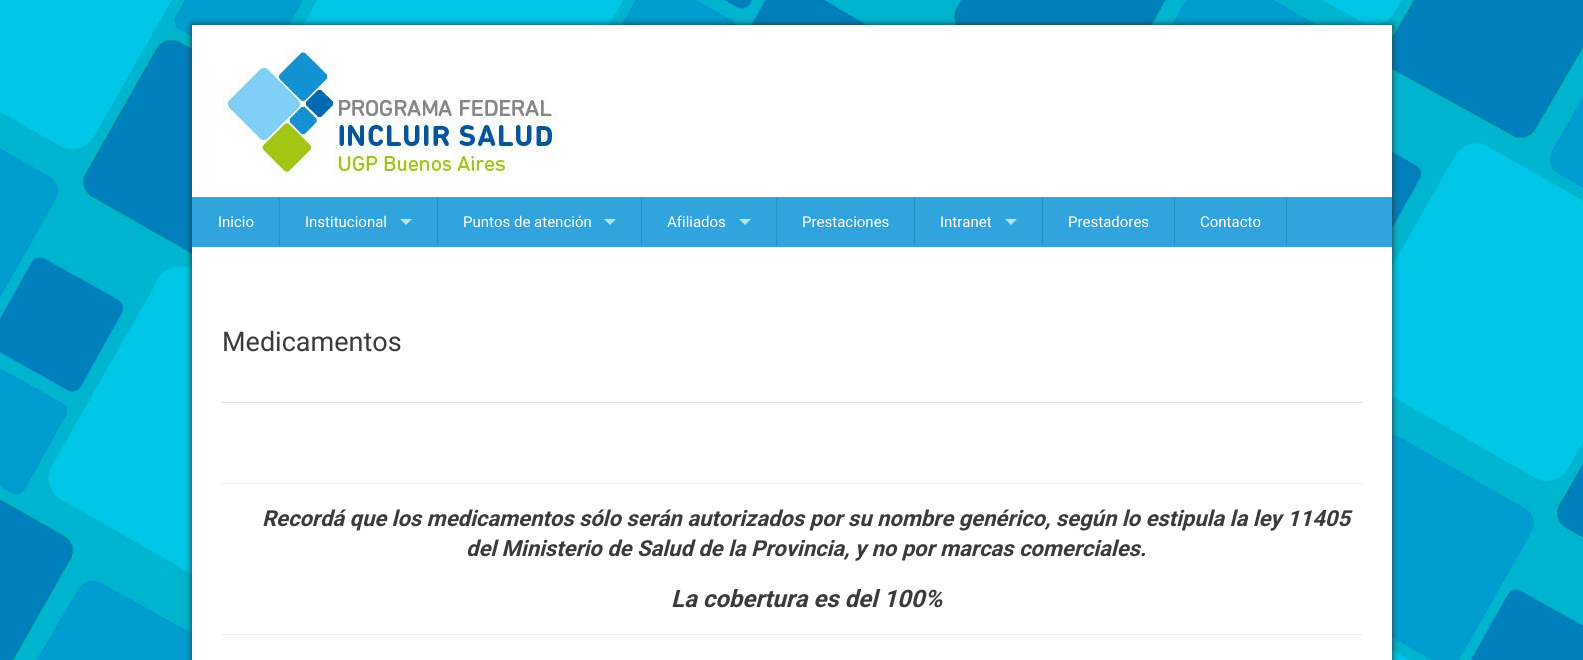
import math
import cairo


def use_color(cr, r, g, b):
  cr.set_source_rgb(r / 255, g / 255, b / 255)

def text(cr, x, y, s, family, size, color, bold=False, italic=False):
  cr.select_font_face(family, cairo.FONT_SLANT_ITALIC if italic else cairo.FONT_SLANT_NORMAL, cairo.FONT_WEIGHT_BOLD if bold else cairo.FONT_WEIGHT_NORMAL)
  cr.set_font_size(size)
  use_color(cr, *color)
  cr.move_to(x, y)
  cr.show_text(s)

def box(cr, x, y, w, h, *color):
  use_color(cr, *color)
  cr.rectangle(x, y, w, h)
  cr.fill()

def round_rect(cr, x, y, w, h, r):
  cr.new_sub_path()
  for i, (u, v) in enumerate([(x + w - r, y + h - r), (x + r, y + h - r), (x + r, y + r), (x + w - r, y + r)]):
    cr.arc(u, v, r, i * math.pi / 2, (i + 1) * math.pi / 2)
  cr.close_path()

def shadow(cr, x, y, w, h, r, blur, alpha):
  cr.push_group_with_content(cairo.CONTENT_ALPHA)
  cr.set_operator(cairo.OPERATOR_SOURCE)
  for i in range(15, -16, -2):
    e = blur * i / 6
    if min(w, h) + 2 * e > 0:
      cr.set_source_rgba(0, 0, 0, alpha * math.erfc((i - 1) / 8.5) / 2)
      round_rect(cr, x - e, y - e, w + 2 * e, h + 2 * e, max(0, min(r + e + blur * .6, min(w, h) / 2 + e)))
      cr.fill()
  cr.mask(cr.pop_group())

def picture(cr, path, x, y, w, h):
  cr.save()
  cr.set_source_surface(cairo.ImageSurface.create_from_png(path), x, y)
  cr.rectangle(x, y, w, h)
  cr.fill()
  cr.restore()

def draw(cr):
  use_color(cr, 255, 255, 255)
  cr.paint()
  picture(cr, "img_01.png", 0, 0, 1583, 660)
  use_color(cr, 48, 48, 48)
  shadow(cr, 192, 25, 1200, 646, 0, 3.5, 1)
  box(cr, 192, 25, 1200, 635, 255, 255, 255)
  picture(cr, "img_02.png", 222, 48, 335, 129)
  box(cr, 192, 197, 1200, 50, 49, 163, 221)
  box(cr, 279, 198, 1, 48, 36, 144, 199)
  box(cr, 437, 198, 1, 48, 36, 144, 199)
  use_color(cr, 181, 227, 232)
  cr.new_path()
  cr.move_to(400, 219)
  cr.line_to(412, 219)
  cr.line_to(406, 225)
  cr.close_path()
  cr.fill()
  box(cr, 641, 198, 1, 48, 36, 144, 199)
  use_color(cr, 181, 227, 232)
  cr.new_path()
  cr.move_to(604, 219)
  cr.line_to(616, 219)
  cr.line_to(610, 225)
  cr.close_path()
  cr.fill()
  box(cr, 776, 198, 1, 48, 36, 144, 199)
  use_color(cr, 181, 227, 232)
  cr.new_path()
  cr.move_to(739, 219)
  cr.line_to(751, 219)
  cr.line_to(745, 225)
  cr.close_path()
  cr.fill()
  box(cr, 914, 198, 1, 48, 36, 144, 199)
  box(cr, 1042, 198, 1, 48, 36, 144, 199)
  use_color(cr, 181, 227, 232)
  cr.new_path()
  cr.move_to(1005, 219)
  cr.line_to(1017, 219)
  cr.line_to(1011, 225)
  cr.close_path()
  cr.fill()
  box(cr, 1174, 198, 1, 48, 36, 144, 199)
  box(cr, 1286, 198, 1, 48, 36, 144, 199)
  box(cr, 222, 402, 1140, 1, 224, 224, 224)
  box(cr, 222, 483, 1140, 1, 238, 238, 238)
  box(cr, 222, 634, 1140, 1, 238, 238, 238)
  text(cr, 218, 227, "Inicio", "Roboto", 15, (255, 255, 255))
  text(cr, 305, 227, "Institucional", "Roboto", 15, (255, 255, 255))
  text(cr, 463, 227, "Puntos de atención", "Roboto", 15, (255, 255, 255))
  text(cr, 667, 227, "Afiliados", "Roboto", 15, (255, 255, 255))
  text(cr, 802, 227, "Prestaciones", "Roboto", 15, (255, 255, 255))
  text(cr, 940, 227, "Intranet", "Roboto", 15, (255, 255, 255))
  text(cr, 1068, 227, "Prestadores", "Roboto", 15, (255, 255, 255))
  text(cr, 1200, 227, "Contacto", "Roboto", 15, (255, 255, 255))
  text(cr, 222, 351, "Medicamentos", "Roboto", 27, (59, 59, 59))
  text(cr, 262, 526, "Recordá que los medicamentos sólo serán autorizados por su nombre genérico, según lo estipula la ley 11405", "Roboto", 22, (59, 59, 59), bold=True, italic=True)
  text(cr, 466, 556, "del Ministerio de Salud de la Provincia, y no por marcas comerciales.", "Roboto", 22, (59, 59, 59), bold=True, italic=True)
  text(cr, 671, 607, "La cobertura es del 100%", "Roboto", 24, (59, 59, 59), bold=True, italic=True)


surface = cairo.ImageSurface(cairo.FORMAT_RGB24, 1583, 660)
cr = cairo.Context(surface)
options = cairo.FontOptions()
options.set_hint_metrics(cairo.HINT_METRICS_OFF)
options.set_hint_style(cairo.HINT_STYLE_NONE)
cr.set_font_options(options)
cr.set_miter_limit(4)
draw(cr)
surface.write_to_png("out.png")
